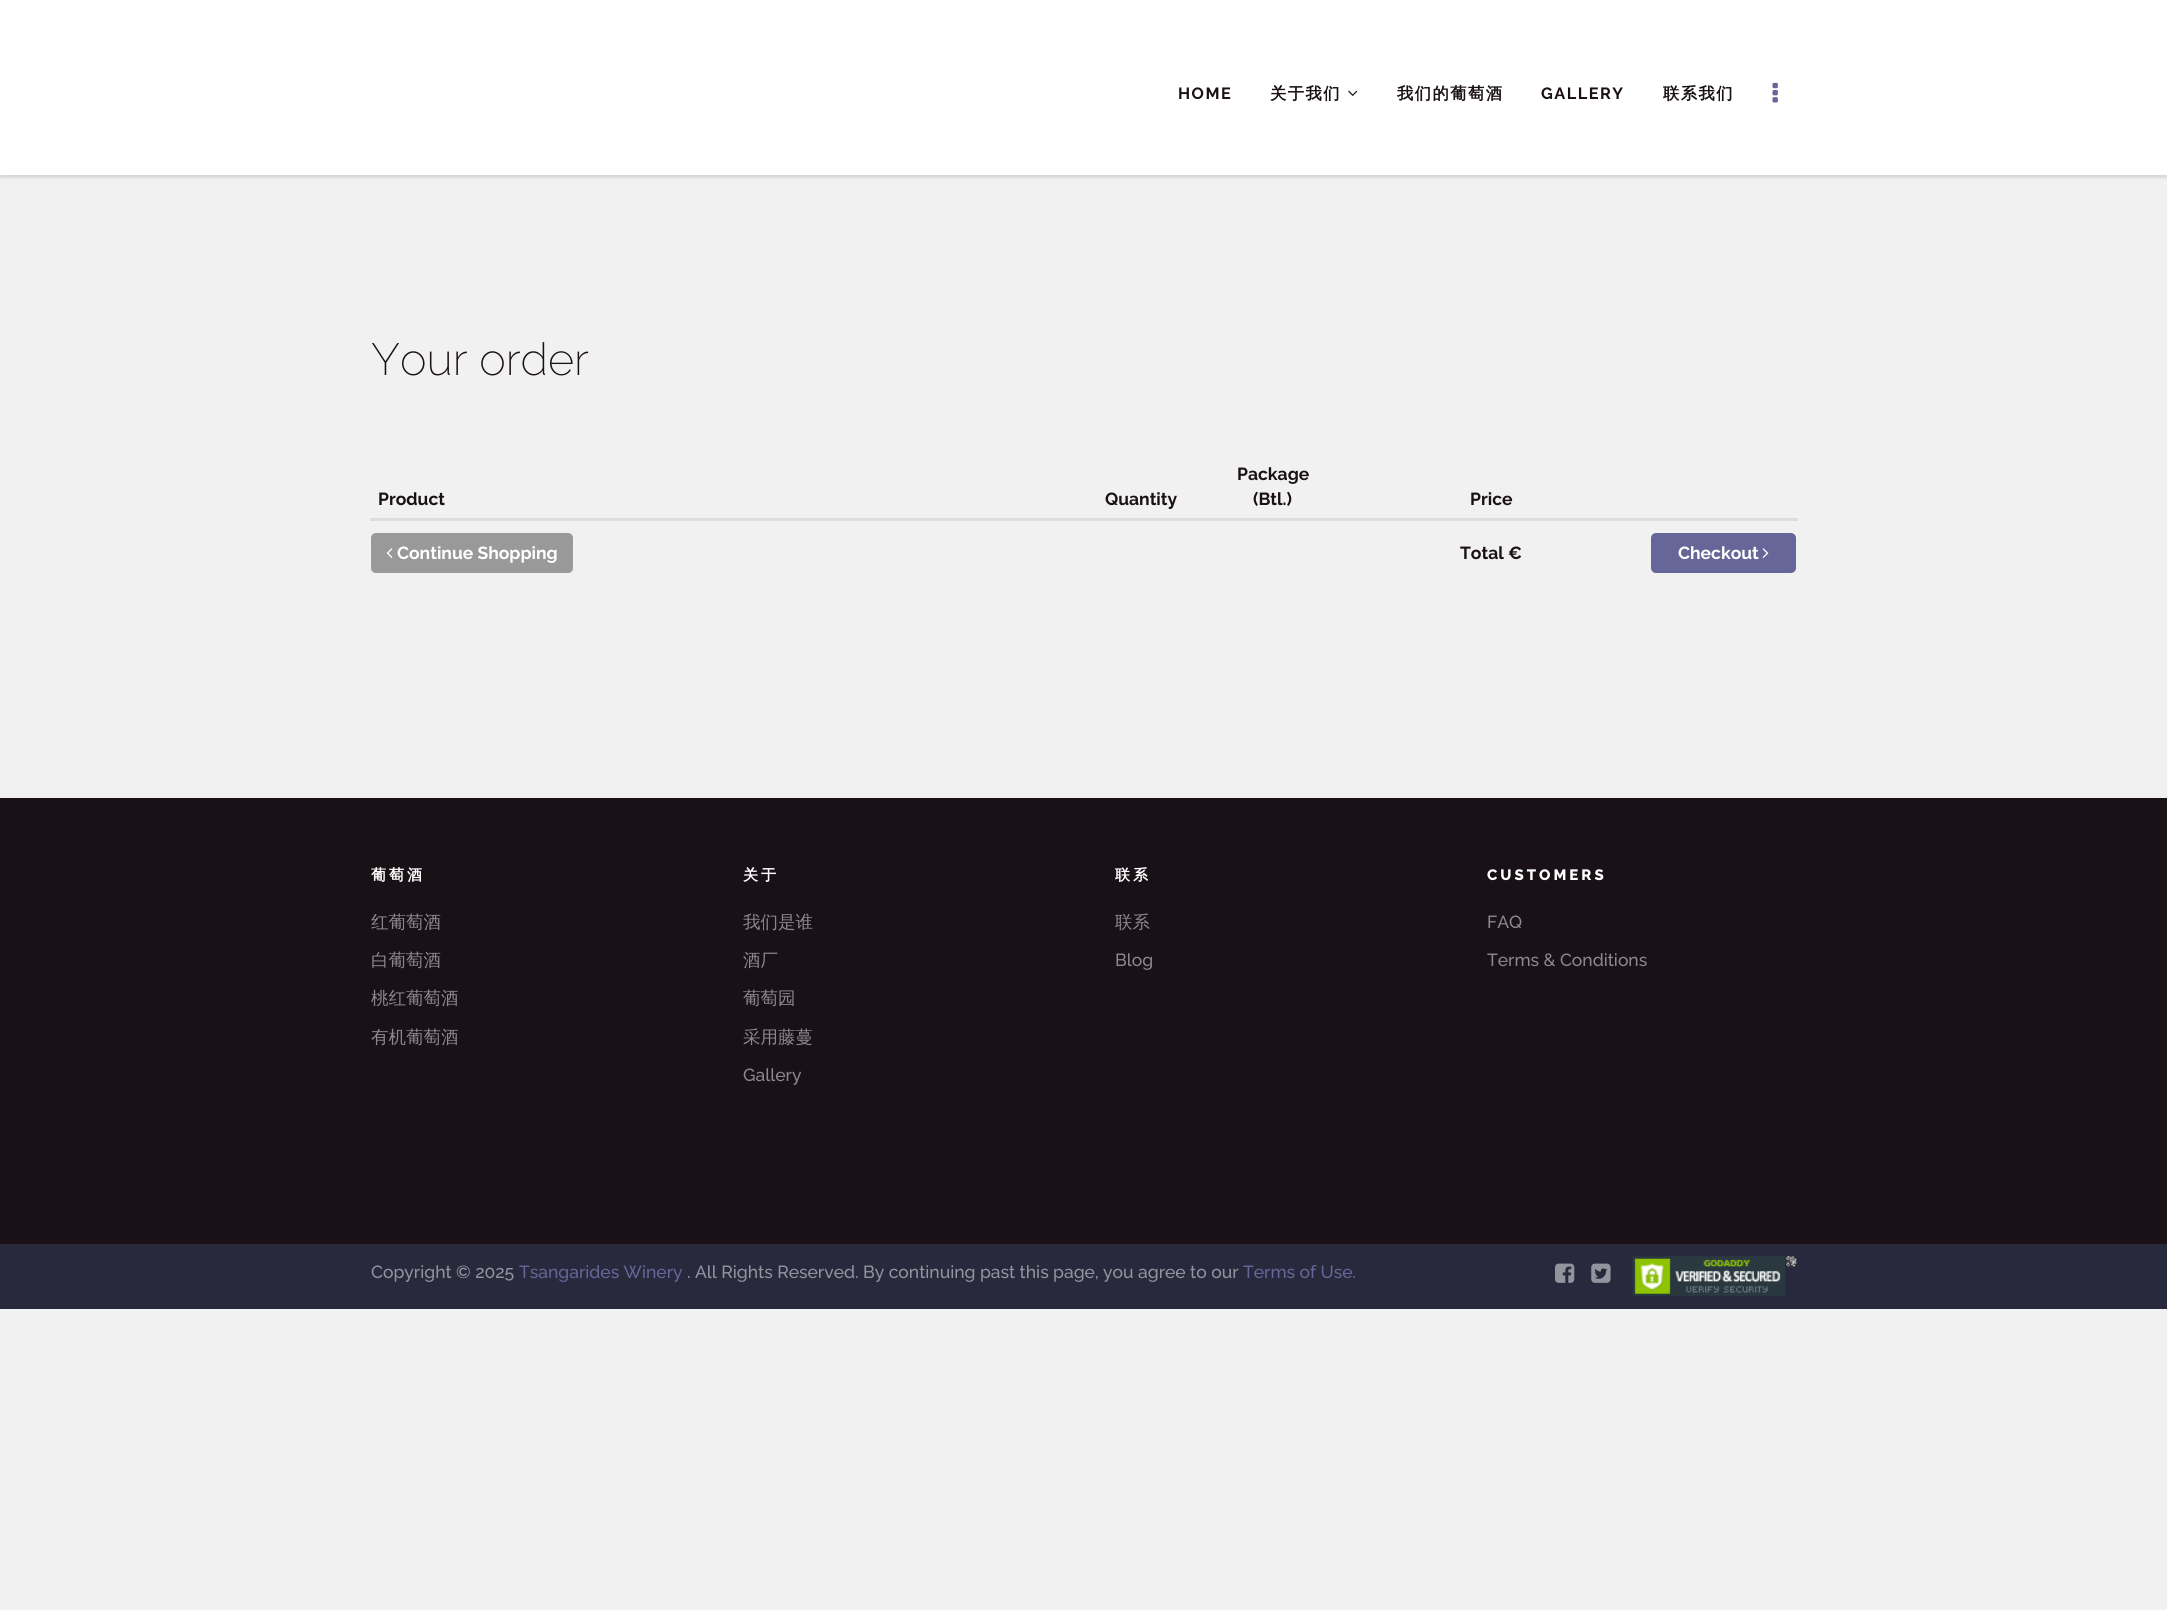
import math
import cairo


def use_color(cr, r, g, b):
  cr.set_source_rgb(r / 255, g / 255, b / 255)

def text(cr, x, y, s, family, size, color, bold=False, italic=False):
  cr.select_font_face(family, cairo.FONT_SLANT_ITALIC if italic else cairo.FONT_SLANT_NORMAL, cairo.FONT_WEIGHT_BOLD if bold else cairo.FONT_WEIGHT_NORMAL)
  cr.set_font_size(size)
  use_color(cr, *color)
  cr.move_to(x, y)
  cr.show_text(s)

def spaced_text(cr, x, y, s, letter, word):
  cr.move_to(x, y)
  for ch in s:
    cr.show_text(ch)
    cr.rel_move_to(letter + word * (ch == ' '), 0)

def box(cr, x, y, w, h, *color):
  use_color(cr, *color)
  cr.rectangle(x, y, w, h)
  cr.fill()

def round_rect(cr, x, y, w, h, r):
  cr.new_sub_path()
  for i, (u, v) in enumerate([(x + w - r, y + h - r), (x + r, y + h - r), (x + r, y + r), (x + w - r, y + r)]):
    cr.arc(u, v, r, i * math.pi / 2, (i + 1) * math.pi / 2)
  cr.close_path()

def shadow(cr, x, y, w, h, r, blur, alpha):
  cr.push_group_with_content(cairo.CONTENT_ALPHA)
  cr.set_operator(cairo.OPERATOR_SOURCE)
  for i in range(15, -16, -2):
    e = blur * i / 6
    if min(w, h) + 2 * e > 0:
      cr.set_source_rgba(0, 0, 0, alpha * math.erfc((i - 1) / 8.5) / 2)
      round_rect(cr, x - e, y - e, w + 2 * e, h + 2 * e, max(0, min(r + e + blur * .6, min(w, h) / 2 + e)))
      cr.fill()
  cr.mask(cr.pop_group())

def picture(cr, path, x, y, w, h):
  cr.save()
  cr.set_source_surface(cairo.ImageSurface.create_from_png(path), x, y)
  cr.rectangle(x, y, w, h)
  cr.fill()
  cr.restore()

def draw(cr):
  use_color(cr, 241, 241, 241)
  cr.paint()
  use_color(cr, 0, 0, 0)
  shadow(cr, 0, 3, 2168, 175, 0, 1, 0.1)
  box(cr, 0, 0, 2167, 175, 255, 255, 255)
  picture(cr, "img_01.png", 1348, 90, 10, 6)
  picture(cr, "img_02.png", 1772, 82, 6, 21)
  box(cr, 370, 518, 1428, 3, 221, 221, 221)
  use_color(cr, 153, 153, 153)
  round_rect(cr, 371, 533, 202, 40, 5)
  cr.fill()
  picture(cr, "img_03.png", 386, 548, 7, 10)
  use_color(cr, 102, 102, 153)
  round_rect(cr, 1651, 533, 145, 40, 5)
  cr.fill()
  picture(cr, "img_04.png", 1762, 548, 7, 10)
  box(cr, 0, 798, 2167, 446, 26, 17, 23)
  box(cr, 0, 1244, 2167, 65, 41, 41, 61)
  picture(cr, "img_05.png", 1555, 1263, 20, 20)
  picture(cr, "img_06.png", 1591, 1263, 20, 20)
  picture(cr, "img_07.png", 1632, 1256, 165, 40)
  cr.select_font_face("Raleway", cairo.FONT_SLANT_NORMAL, cairo.FONT_WEIGHT_BOLD)
  cr.set_font_size(16.25)
  use_color(cr, 26, 17, 23)
  spaced_text(cr, 1178, 99, "HOME", 1.5, 0)
  cr.select_font_face("WenQuanYi Zen Hei", cairo.FONT_SLANT_NORMAL, cairo.FONT_WEIGHT_BOLD)
  spaced_text(cr, 1270, 99, "关于我们", 1.5, 0)
  spaced_text(cr, 1397, 99, "我们的葡萄酒", 1.5, 0)
  cr.select_font_face("Raleway", cairo.FONT_SLANT_NORMAL, cairo.FONT_WEIGHT_BOLD)
  spaced_text(cr, 1541, 99, "GALLERY", 1.5, 0)
  cr.select_font_face("WenQuanYi Zen Hei", cairo.FONT_SLANT_NORMAL, cairo.FONT_WEIGHT_BOLD)
  spaced_text(cr, 1663, 99, "联系我们", 1.5, 0)
  text(cr, 371, 375, "Your order", "Raleway ExtraLight", 45, (26, 17, 23))
  text(cr, 378, 505, "Product", "Raleway", 17.5, (26, 17, 23), bold=True)
  text(cr, 1105, 505, "Quantity", "Raleway", 17.5, (26, 17, 23), bold=True)
  text(cr, 1237, 480, "Package", "Raleway", 17.5, (26, 17, 23), bold=True)
  text(cr, 1253, 505, "(Btl.)", "Raleway", 17.5, (26, 17, 23), bold=True)
  text(cr, 1470, 505, "Price", "Raleway", 17.5, (26, 17, 23), bold=True)
  text(cr, 397, 559, "Continue Shopping", "Raleway", 17.5, (255, 255, 255), bold=True)
  text(cr, 1460, 559, "Total €", "Raleway", 17.5, (26, 17, 23), bold=True)
  text(cr, 1678, 559, "Checkout", "Raleway", 17.5, (255, 255, 255), bold=True)
  cr.select_font_face("WenQuanYi Zen Hei", cairo.FONT_SLANT_NORMAL, cairo.FONT_WEIGHT_BOLD)
  cr.set_font_size(15)
  spaced_text(cr, 371, 880, "葡萄酒", 3, 0)
  text(cr, 371, 928, "红葡萄酒", "WenQuanYi Zen Hei Medium", 17.5, (141, 136, 139))
  text(cr, 371, 966, "白葡萄酒", "WenQuanYi Zen Hei Medium", 17.5, (141, 136, 139))
  text(cr, 371, 1004, "桃红葡萄酒", "WenQuanYi Zen Hei Medium", 17.5, (141, 136, 139))
  text(cr, 371, 1043, "有机葡萄酒", "WenQuanYi Zen Hei Medium", 17.5, (141, 136, 139))
  cr.select_font_face("WenQuanYi Zen Hei", cairo.FONT_SLANT_NORMAL, cairo.FONT_WEIGHT_BOLD)
  cr.set_font_size(15)
  use_color(cr, 255, 255, 255)
  spaced_text(cr, 743, 880, "关于", 3, 0)
  text(cr, 743, 928, "我们是谁", "WenQuanYi Zen Hei Medium", 17.5, (141, 136, 139))
  text(cr, 743, 966, "酒厂", "WenQuanYi Zen Hei Medium", 17.5, (141, 136, 139))
  text(cr, 743, 1004, "葡萄园", "WenQuanYi Zen Hei Medium", 17.5, (141, 136, 139))
  text(cr, 743, 1043, "采用藤蔓", "WenQuanYi Zen Hei Medium", 17.5, (141, 136, 139))
  text(cr, 743, 1081, "Gallery", "Raleway Medium", 17.5, (141, 136, 139))
  cr.select_font_face("WenQuanYi Zen Hei", cairo.FONT_SLANT_NORMAL, cairo.FONT_WEIGHT_BOLD)
  cr.set_font_size(15)
  use_color(cr, 255, 255, 255)
  spaced_text(cr, 1115, 880, "联系", 3, 0)
  text(cr, 1115, 928, "联系", "WenQuanYi Zen Hei Medium", 17.5, (141, 136, 139))
  text(cr, 1115, 966, "Blog", "Raleway Medium", 17.5, (141, 136, 139))
  cr.select_font_face("Raleway ExtraBold")
  cr.set_font_size(15)
  use_color(cr, 255, 255, 255)
  spaced_text(cr, 1487, 880, "CUSTOMERS", 3, 0)
  text(cr, 1487, 928, "FAQ", "Raleway Medium", 17.5, (141, 136, 139))
  text(cr, 1487, 966, "Terms & Conditions", "Raleway Medium", 17.5, (141, 136, 139))
  text(cr, 371, 1278, "Copyright © 2025", "Raleway Medium", 17.5, (148, 148, 158))
  text(cr, 519, 1278, "Tsangarides Winery", "Raleway Medium", 17.5, (102, 102, 153))
  text(cr, 687, 1278, ". All Rights Reserved. By continuing past this page, you agree to our", "Raleway Medium", 17.5, (148, 148, 158))
  text(cr, 1243, 1278, "Terms of Use.", "Raleway Medium", 17.5, (102, 102, 153))


surface = cairo.ImageSurface(cairo.FORMAT_RGB24, 2167, 1610)
cr = cairo.Context(surface)
options = cairo.FontOptions()
options.set_hint_metrics(cairo.HINT_METRICS_OFF)
options.set_hint_style(cairo.HINT_STYLE_NONE)
cr.set_font_options(options)
cr.set_miter_limit(4)
draw(cr)
surface.write_to_png("out.png")
